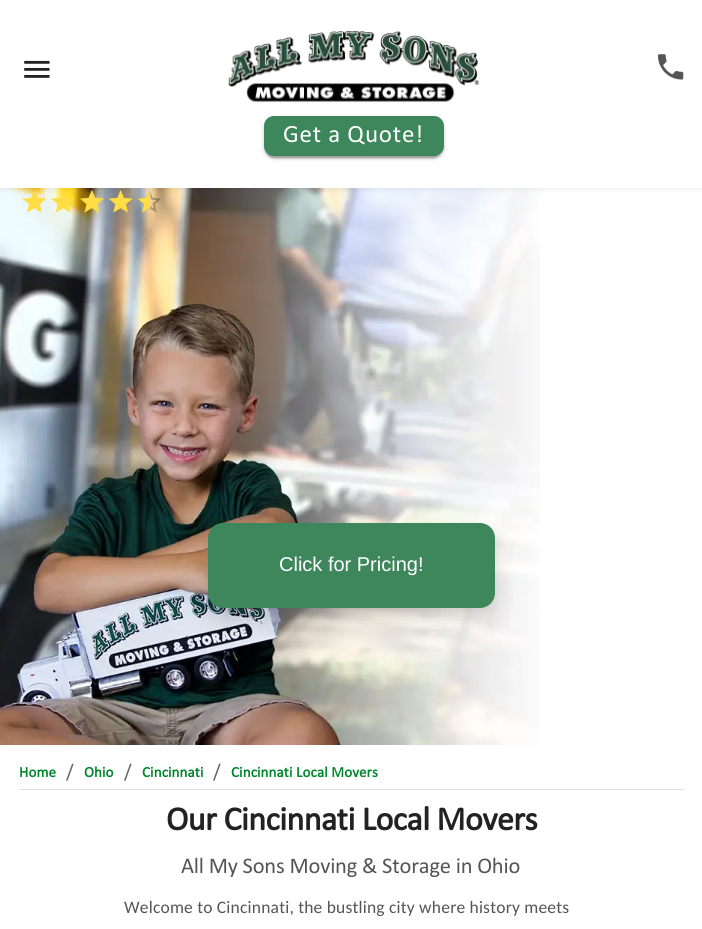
import math
import cairo


def use_color(cr, r, g, b):
  cr.set_source_rgb(r / 255, g / 255, b / 255)

def text(cr, x, y, s, family, size, color, bold=False, italic=False):
  cr.select_font_face(family, cairo.FONT_SLANT_ITALIC if italic else cairo.FONT_SLANT_NORMAL, cairo.FONT_WEIGHT_BOLD if bold else cairo.FONT_WEIGHT_NORMAL)
  cr.set_font_size(size)
  use_color(cr, *color)
  cr.move_to(x, y)
  cr.show_text(s)

def spaced_text(cr, x, y, s, letter, word):
  cr.move_to(x, y)
  for ch in s:
    cr.show_text(ch)
    cr.rel_move_to(letter + word * (ch == ' '), 0)

def box(cr, x, y, w, h, *color):
  use_color(cr, *color)
  cr.rectangle(x, y, w, h)
  cr.fill()

def round_rect(cr, x, y, w, h, r):
  cr.new_sub_path()
  for i, (u, v) in enumerate([(x + w - r, y + h - r), (x + r, y + h - r), (x + r, y + r), (x + w - r, y + r)]):
    cr.arc(u, v, r, i * math.pi / 2, (i + 1) * math.pi / 2)
  cr.close_path()

def shadow(cr, x, y, w, h, r, blur, alpha):
  cr.push_group_with_content(cairo.CONTENT_ALPHA)
  cr.set_operator(cairo.OPERATOR_SOURCE)
  for i in range(15, -16, -2):
    e = blur * i / 6
    if min(w, h) + 2 * e > 0:
      cr.set_source_rgba(0, 0, 0, alpha * math.erfc((i - 1) / 8.5) / 2)
      round_rect(cr, x - e, y - e, w + 2 * e, h + 2 * e, max(0, min(r + e + blur * .6, min(w, h) / 2 + e)))
      cr.fill()
  cr.mask(cr.pop_group())

def picture(cr, path, x, y, w, h):
  cr.save()
  cr.set_source_surface(cairo.ImageSurface.create_from_png(path), x, y)
  cr.rectangle(x, y, w, h)
  cr.fill()
  cr.restore()

def draw(cr):
  use_color(cr, 255, 255, 255)
  cr.paint()
  picture(cr, "img_04.png", 0, 188, 540, 557)
  picture(cr, "img_05.png", 22, 190, 25, 23)
  picture(cr, "img_06.png", 51, 190, 24, 23)
  picture(cr, "img_07.png", 80, 190, 24, 23)
  picture(cr, "img_08.png", 108, 190, 25, 23)
  picture(cr, "img_09.png", 137, 190, 24, 23)
  picture(cr, "img_10.png", 137, 190, 13, 23)
  use_color(cr, 0, 0, 0)
  shadow(cr, 0, 3, 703, 187, 0, 3, 0.07)
  box(cr, 0, 0, 702, 188, 255, 255, 255)
  picture(cr, "img_01.png", 24, 60, 26, 18)
  picture(cr, "img_02.png", 228, 31, 251, 71)
  picture(cr, "img_03.png", 658, 54, 26, 26)
  use_color(cr, 0, 0, 0)
  shadow(cr, 264, 118, 180, 40, 10, 3, 0.12)
  shadow(cr, 264, 119, 180, 40, 10, 1, 0.14)
  shadow(cr, 266, 123, 175, 35, 8, 0.5, 0.2)
  use_color(cr, 62, 135, 92)
  round_rect(cr, 264, 116, 180, 40, 10)
  cr.fill()
  use_color(cr, 0, 0, 0)
  shadow(cr, 208, 534, 287, 85, 15, 11, 0.15)
  use_color(cr, 62, 135, 92)
  round_rect(cr, 208, 523, 287, 85, 15)
  cr.fill()
  box(cr, 19, 789, 665, 1, 224, 224, 224)
  cr.select_font_face("Calibri")
  cr.set_font_size(25)
  use_color(cr, 255, 255, 255)
  spaced_text(cr, 283, 142, "Get a Quote!", 0.75, 0)
  text(cr, 279, 571, "Click for Pricing!", "Liberation Sans", 20, (255, 255, 255))
  cr.select_font_face("Calibri", cairo.FONT_SLANT_NORMAL, cairo.FONT_WEIGHT_BOLD)
  cr.set_font_size(15)
  use_color(cr, 0, 134, 44)
  spaced_text(cr, 19, 777, "Home", 0.1, 0)
  cr.select_font_face("Calibri")
  cr.set_font_size(20)
  use_color(cr, 102, 102, 102)
  spaced_text(cr, 66, 778, "/", 0.2, 0)
  cr.select_font_face("Calibri", cairo.FONT_SLANT_NORMAL, cairo.FONT_WEIGHT_BOLD)
  cr.set_font_size(15)
  use_color(cr, 0, 134, 44)
  spaced_text(cr, 84, 777, "Ohio", 0.1, 0)
  cr.select_font_face("Calibri")
  cr.set_font_size(20)
  use_color(cr, 102, 102, 102)
  spaced_text(cr, 124, 778, "/", 0.2, 0)
  cr.select_font_face("Calibri", cairo.FONT_SLANT_NORMAL, cairo.FONT_WEIGHT_BOLD)
  cr.set_font_size(15)
  use_color(cr, 0, 134, 44)
  spaced_text(cr, 142, 777, "Cincinnati", 0.1, 0)
  cr.select_font_face("Calibri")
  cr.set_font_size(20)
  use_color(cr, 102, 102, 102)
  spaced_text(cr, 213, 778, "/", 0.2, 0)
  cr.select_font_face("Calibri", cairo.FONT_SLANT_NORMAL, cairo.FONT_WEIGHT_BOLD)
  cr.set_font_size(15)
  use_color(cr, 0, 134, 44)
  spaced_text(cr, 231, 777, "Cincinnati Local Movers", 0.1, 0)
  cr.set_font_size(33.75)
  use_color(cr, 34, 34, 34)
  spaced_text(cr, 166, 830, "Our Cincinnati Local Movers", -0.5, 0)
  cr.select_font_face("Calibri")
  cr.set_font_size(22.5)
  use_color(cr, 85, 85, 85)
  spaced_text(cr, 181, 873, "All My Sons Moving & Storage in Ohio", -0.2, 0)
  cr.select_font_face("Carlito")
  cr.set_font_size(17.5)
  spaced_text(cr, 124, 913, "Welcome to Cincinnati, the bustling city where history meets", 0.2, 0)


surface = cairo.ImageSurface(cairo.FORMAT_RGB24, 702, 929)
cr = cairo.Context(surface)
options = cairo.FontOptions()
options.set_hint_metrics(cairo.HINT_METRICS_OFF)
options.set_hint_style(cairo.HINT_STYLE_NONE)
cr.set_font_options(options)
cr.set_miter_limit(4)
draw(cr)
surface.write_to_png("out.png")
